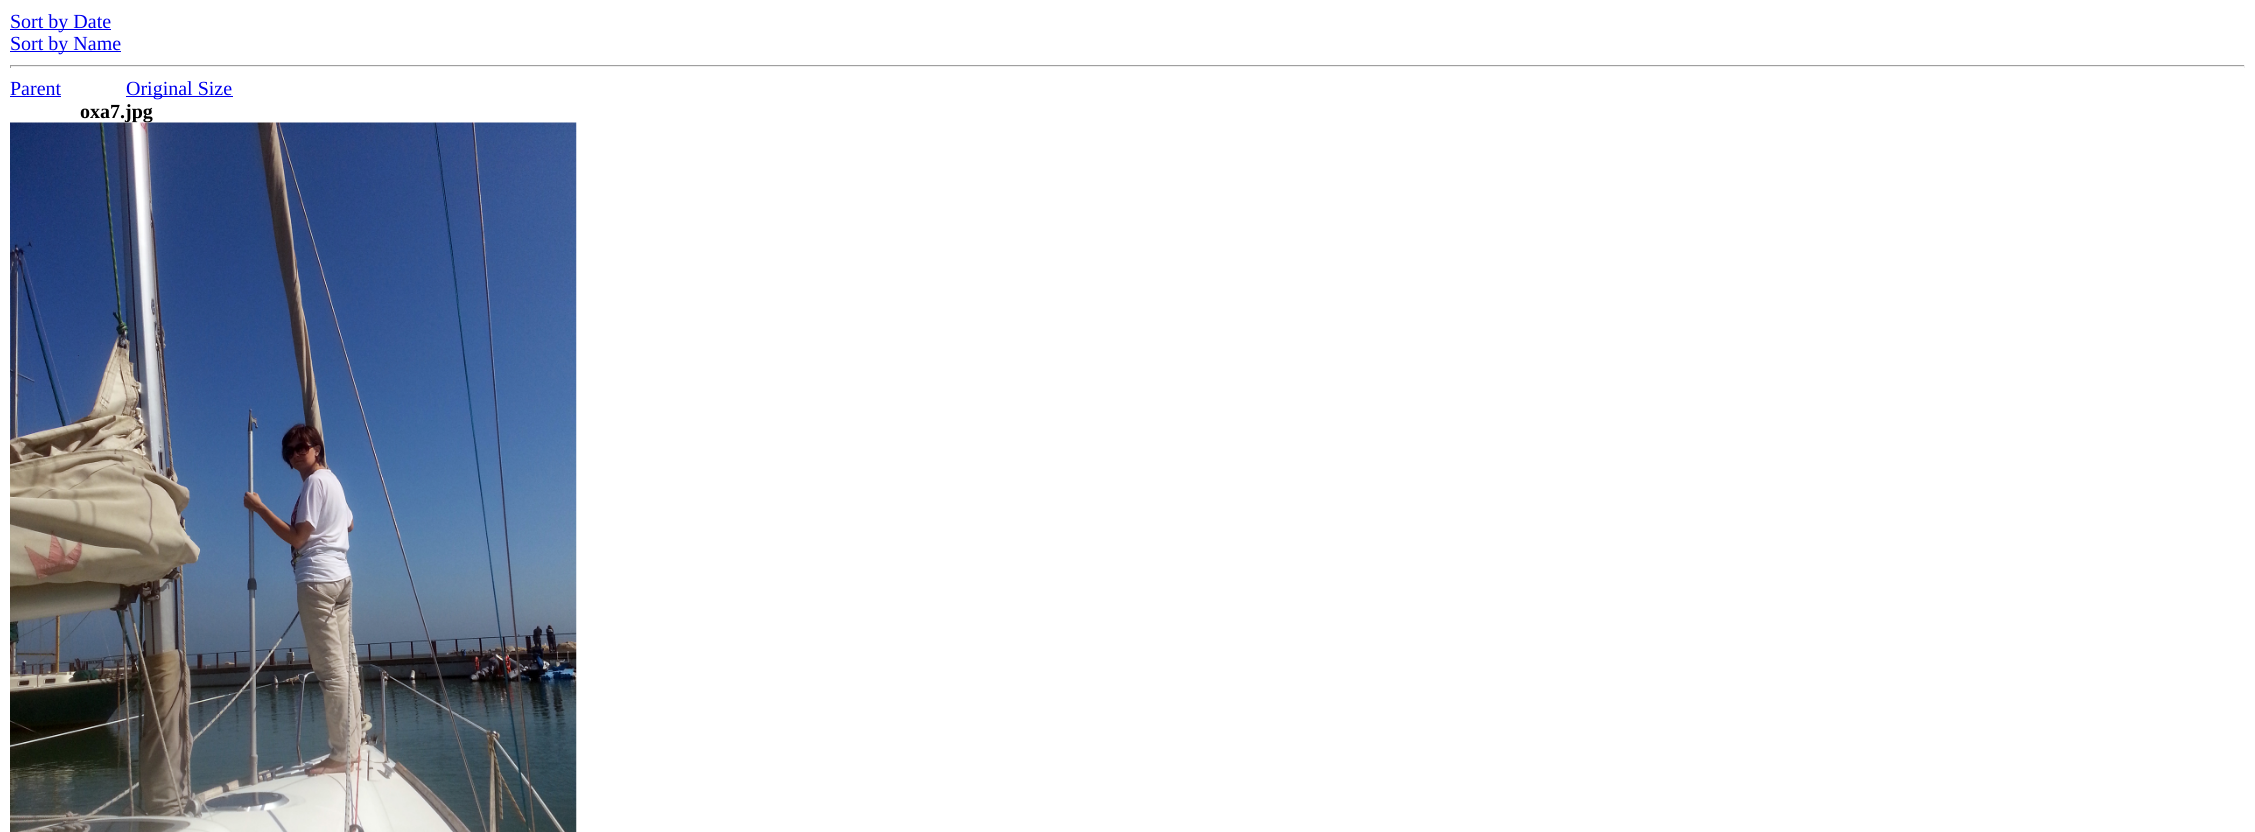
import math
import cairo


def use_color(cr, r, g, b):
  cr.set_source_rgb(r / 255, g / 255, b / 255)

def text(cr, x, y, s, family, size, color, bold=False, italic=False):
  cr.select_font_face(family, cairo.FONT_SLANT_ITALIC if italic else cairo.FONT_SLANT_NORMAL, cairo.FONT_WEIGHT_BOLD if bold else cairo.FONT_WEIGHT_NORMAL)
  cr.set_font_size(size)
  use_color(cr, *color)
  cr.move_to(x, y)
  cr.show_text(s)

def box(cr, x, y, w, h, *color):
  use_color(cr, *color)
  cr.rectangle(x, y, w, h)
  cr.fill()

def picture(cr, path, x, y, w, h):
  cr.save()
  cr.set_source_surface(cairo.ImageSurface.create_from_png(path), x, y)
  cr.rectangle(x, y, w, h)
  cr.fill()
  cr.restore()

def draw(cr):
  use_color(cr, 255, 255, 255)
  cr.paint()
  box(cr, 10, 29, 101, 1, 0, 0, 238)
  box(cr, 10, 51, 111, 1, 0, 0, 238)
  box(cr, 10, 65, 2235, 1, 159, 159, 159)
  box(cr, 2244, 65, 1, 3, 238, 238, 238)
  box(cr, 10, 66, 2235, 1, 238, 238, 238)
  box(cr, 10, 65, 1, 3, 159, 159, 159)
  box(cr, 10, 96, 51, 1, 0, 0, 238)
  box(cr, 126, 96, 107, 1, 0, 0, 238)
  text(cr, 10, 28, "Sort by Date", "Liberation Serif", 20, (0, 0, 238))
  text(cr, 10, 50, "Sort by Name", "Liberation Serif", 20, (0, 0, 238))
  text(cr, 10, 95, "Parent", "Liberation Serif", 20, (0, 0, 238))
  text(cr, 126, 95, "Original Size", "Liberation Serif", 20, (0, 0, 238))
  text(cr, 80, 118, "oxa7.jpg", "Liberation Serif", 20, (0, 0, 0), bold=True)
  picture(cr, "img_01.png", 10, 122, 567, 710)


surface = cairo.ImageSurface(cairo.FORMAT_RGB24, 2255, 832)
cr = cairo.Context(surface)
options = cairo.FontOptions()
options.set_hint_metrics(cairo.HINT_METRICS_OFF)
options.set_hint_style(cairo.HINT_STYLE_NONE)
cr.set_font_options(options)
cr.set_miter_limit(4)
draw(cr)
surface.write_to_png("out.png")
